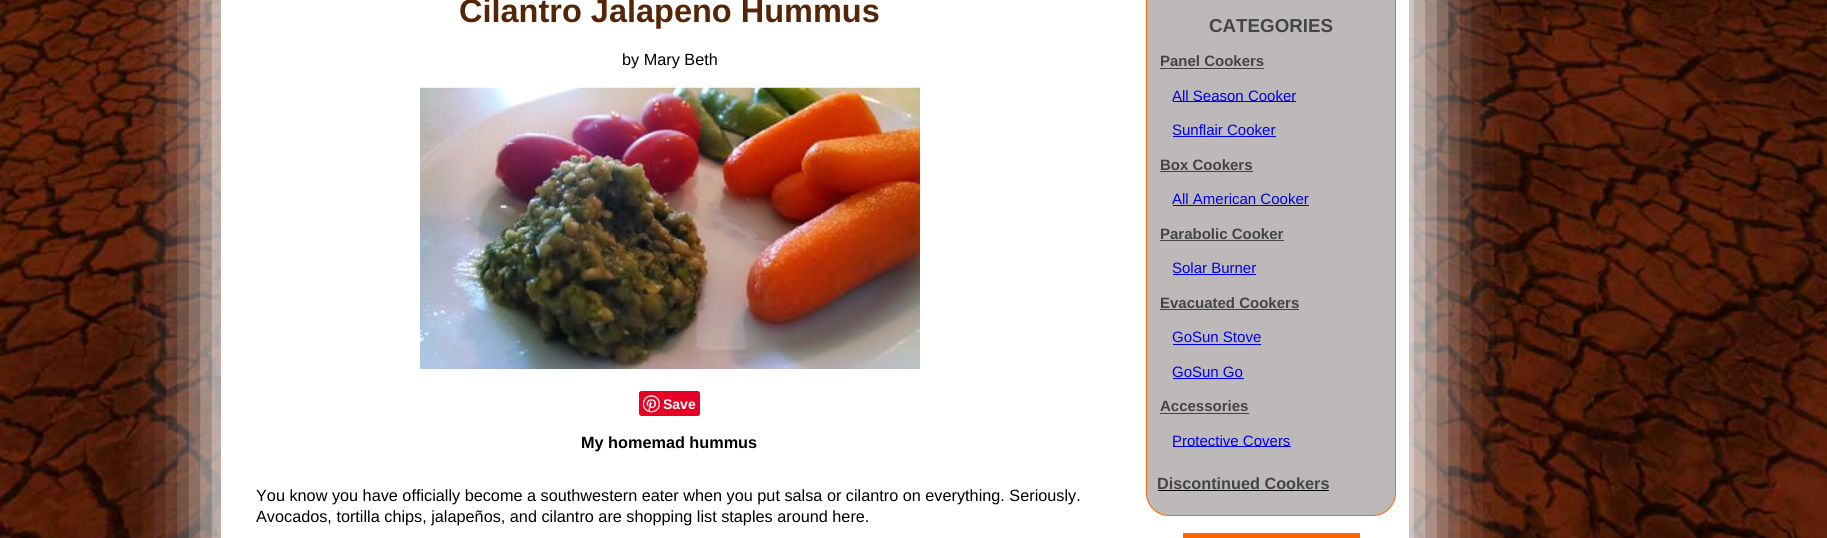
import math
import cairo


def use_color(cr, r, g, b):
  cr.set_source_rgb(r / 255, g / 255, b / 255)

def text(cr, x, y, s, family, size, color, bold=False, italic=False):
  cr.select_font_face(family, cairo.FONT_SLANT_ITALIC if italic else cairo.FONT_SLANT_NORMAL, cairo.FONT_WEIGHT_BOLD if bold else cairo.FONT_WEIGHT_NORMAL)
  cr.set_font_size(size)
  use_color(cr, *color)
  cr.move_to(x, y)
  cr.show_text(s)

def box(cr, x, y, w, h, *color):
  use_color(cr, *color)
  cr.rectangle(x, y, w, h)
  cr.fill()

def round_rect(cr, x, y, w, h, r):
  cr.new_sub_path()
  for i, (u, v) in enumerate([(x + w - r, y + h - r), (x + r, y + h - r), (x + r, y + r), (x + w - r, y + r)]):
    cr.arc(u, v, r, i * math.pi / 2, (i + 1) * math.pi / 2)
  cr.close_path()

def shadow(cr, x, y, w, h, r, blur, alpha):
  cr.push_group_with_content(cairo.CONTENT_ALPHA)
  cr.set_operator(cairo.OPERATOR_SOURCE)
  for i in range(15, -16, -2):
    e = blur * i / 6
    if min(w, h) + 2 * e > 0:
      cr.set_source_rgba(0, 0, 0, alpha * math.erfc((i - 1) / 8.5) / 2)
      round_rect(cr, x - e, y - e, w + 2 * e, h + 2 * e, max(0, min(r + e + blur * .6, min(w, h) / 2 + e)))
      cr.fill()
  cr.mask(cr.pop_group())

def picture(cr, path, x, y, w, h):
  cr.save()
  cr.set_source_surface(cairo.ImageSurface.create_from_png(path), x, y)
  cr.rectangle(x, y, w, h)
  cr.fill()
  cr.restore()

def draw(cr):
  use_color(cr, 255, 255, 255)
  cr.paint()
  picture(cr, "img_01.png", 0, 0, 1827, 538)
  shadow(cr, 206, -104, 1225, 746, 0, 34.5, 1)
  box(cr, 221, 0, 1188, 538, 255, 255, 255)
  picture(cr, "img_02.png", 420, 87, 500, 282)
  use_color(cr, 230, 0, 35)
  round_rect(cr, 639, 391, 61, 25, 2.5)
  cr.fill()
  picture(cr, "img_03.png", 643, 395, 17, 18)
  use_color(cr, 189, 185, 185)
  round_rect(cr, 1146.5, -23.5, 249, 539, 22.5)
  cr.fill_preserve()
  use_color(cr, 255, 102, 0)
  cr.set_line_width(1)
  cr.stroke()
  box(cr, 1160, 68, 104, 1, 69, 68, 68)
  box(cr, 1173, 101, 123, 1, 0, 0, 238)
  box(cr, 1173, 136, 103, 1, 0, 0, 238)
  box(cr, 1160, 171, 93, 1, 69, 68, 68)
  box(cr, 1173, 205, 136, 1, 0, 0, 238)
  box(cr, 1160, 240, 124, 1, 69, 68, 68)
  box(cr, 1173, 274, 83, 1, 0, 0, 238)
  box(cr, 1160, 309, 139, 1, 69, 68, 68)
  box(cr, 1173, 344, 88, 1, 0, 0, 238)
  box(cr, 1173, 378, 71, 1, 0, 0, 238)
  box(cr, 1160, 413, 89, 1, 69, 68, 68)
  box(cr, 1173, 446, 118, 1, 0, 0, 238)
  box(cr, 1158, 490, 171, 1, 0, 0, 0)
  box(cr, 1183, 533, 177, 5, 255, 102, 0)
  text(cr, 459, 22, "Cilantro Jalapeno Hummus", "Liberation Sans", 32.5, (84, 38, 7), bold=True)
  text(cr, 622, 65, "by Mary Beth", "Liberation Sans", 16.25, (0, 0, 0))
  text(cr, 663, 409, "Save", "Liberation Sans", 14, (255, 255, 255), bold=True)
  text(cr, 581, 448, "My homemad hummus", "Liberation Sans", 16.25, (0, 0, 0), bold=True)
  text(cr, 256, 501, "You know you have officially become a southwestern eater when you put salsa or cilantro on everything. Seriously.", "Liberation Sans", 16.25, (0, 0, 0))
  text(cr, 256, 522, "Avocados, tortilla chips, jalapeños, and cilantro are shopping list staples around here.", "Liberation Sans", 16.25, (0, 0, 0))
  text(cr, 1209, 32, "CATEGORIES", "Liberation Sans", 18.75, (69, 68, 68), bold=True)
  text(cr, 1160, 66, "Panel Cookers", "Liberation Sans", 15, (69, 68, 68), bold=True)
  text(cr, 1172, 101, "All Season Cooker", "Liberation Sans", 15, (0, 0, 238))
  text(cr, 1172, 135, "Sunflair Cooker", "Liberation Sans", 15, (0, 0, 238))
  text(cr, 1160, 170, "Box Cookers", "Liberation Sans", 15, (69, 68, 68), bold=True)
  text(cr, 1172, 204, "All American Cooker", "Liberation Sans", 15, (0, 0, 238))
  text(cr, 1160, 239, "Parabolic Cooker", "Liberation Sans", 15, (69, 68, 68), bold=True)
  text(cr, 1172, 273, "Solar Burner", "Liberation Sans", 15, (0, 0, 238))
  text(cr, 1160, 308, "Evacuated Cookers", "Liberation Sans", 15, (69, 68, 68), bold=True)
  text(cr, 1172, 342, "GoSun Stove", "Liberation Sans", 15, (0, 0, 238))
  text(cr, 1172, 377, "GoSun Go", "Liberation Sans", 15, (0, 0, 238))
  text(cr, 1160, 411, "Accessories", "Liberation Sans", 15, (69, 68, 68), bold=True)
  text(cr, 1172, 446, "Protective Covers", "Liberation Sans", 15, (0, 0, 238))
  text(cr, 1157, 489, "Discontinued Cookers", "Liberation Sans", 16.25, (69, 68, 68), bold=True)


surface = cairo.ImageSurface(cairo.FORMAT_RGB24, 1827, 538)
cr = cairo.Context(surface)
options = cairo.FontOptions()
options.set_hint_metrics(cairo.HINT_METRICS_OFF)
options.set_hint_style(cairo.HINT_STYLE_NONE)
cr.set_font_options(options)
cr.set_miter_limit(4)
draw(cr)
surface.write_to_png("out.png")
